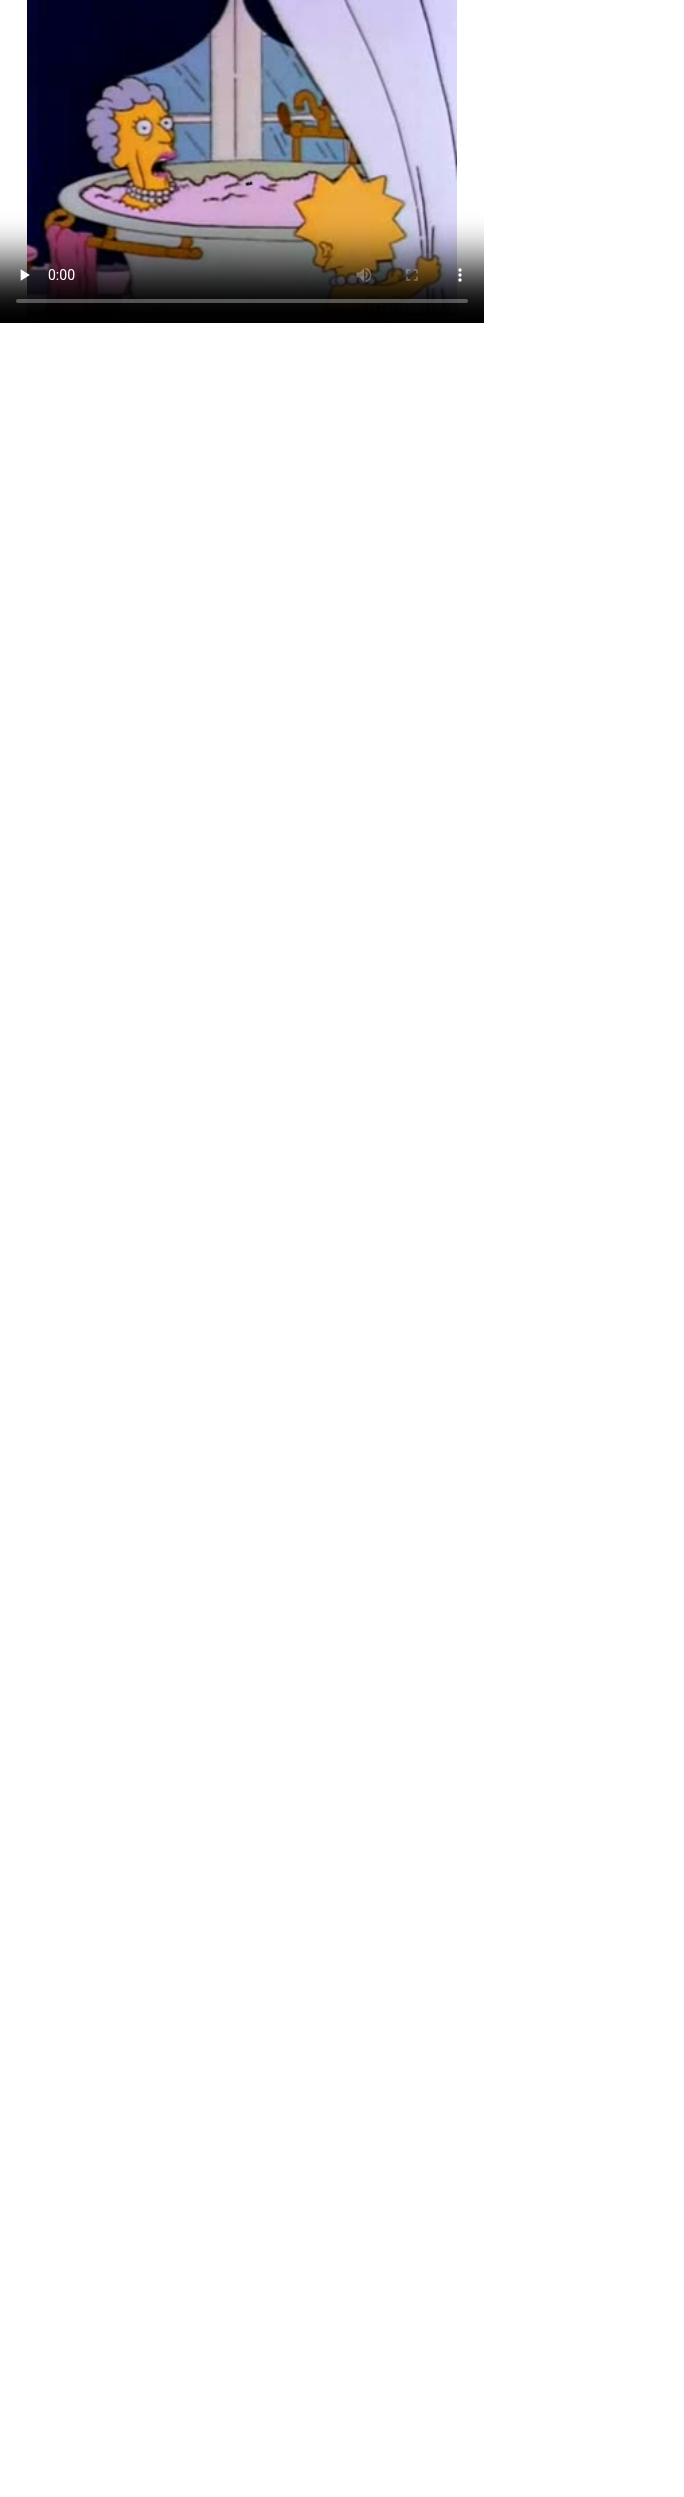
import math
import cairo


def use_color(cr, r, g, b):
  cr.set_source_rgb(r / 255, g / 255, b / 255)

def picture(cr, path, x, y, w, h):
  cr.save()
  cr.set_source_surface(cairo.ImageSurface.create_from_png(path), x, y)
  cr.rectangle(x, y, w, h)
  cr.fill()
  cr.restore()

def draw(cr):
  use_color(cr, 255, 255, 255)
  cr.paint()
  picture(cr, "img_01.png", 0, 0, 484, 323)


surface = cairo.ImageSurface(cairo.FORMAT_RGB24, 684, 2497)
cr = cairo.Context(surface)
options = cairo.FontOptions()
options.set_hint_metrics(cairo.HINT_METRICS_OFF)
options.set_hint_style(cairo.HINT_STYLE_NONE)
cr.set_font_options(options)
cr.set_miter_limit(4)
draw(cr)
surface.write_to_png("out.png")
